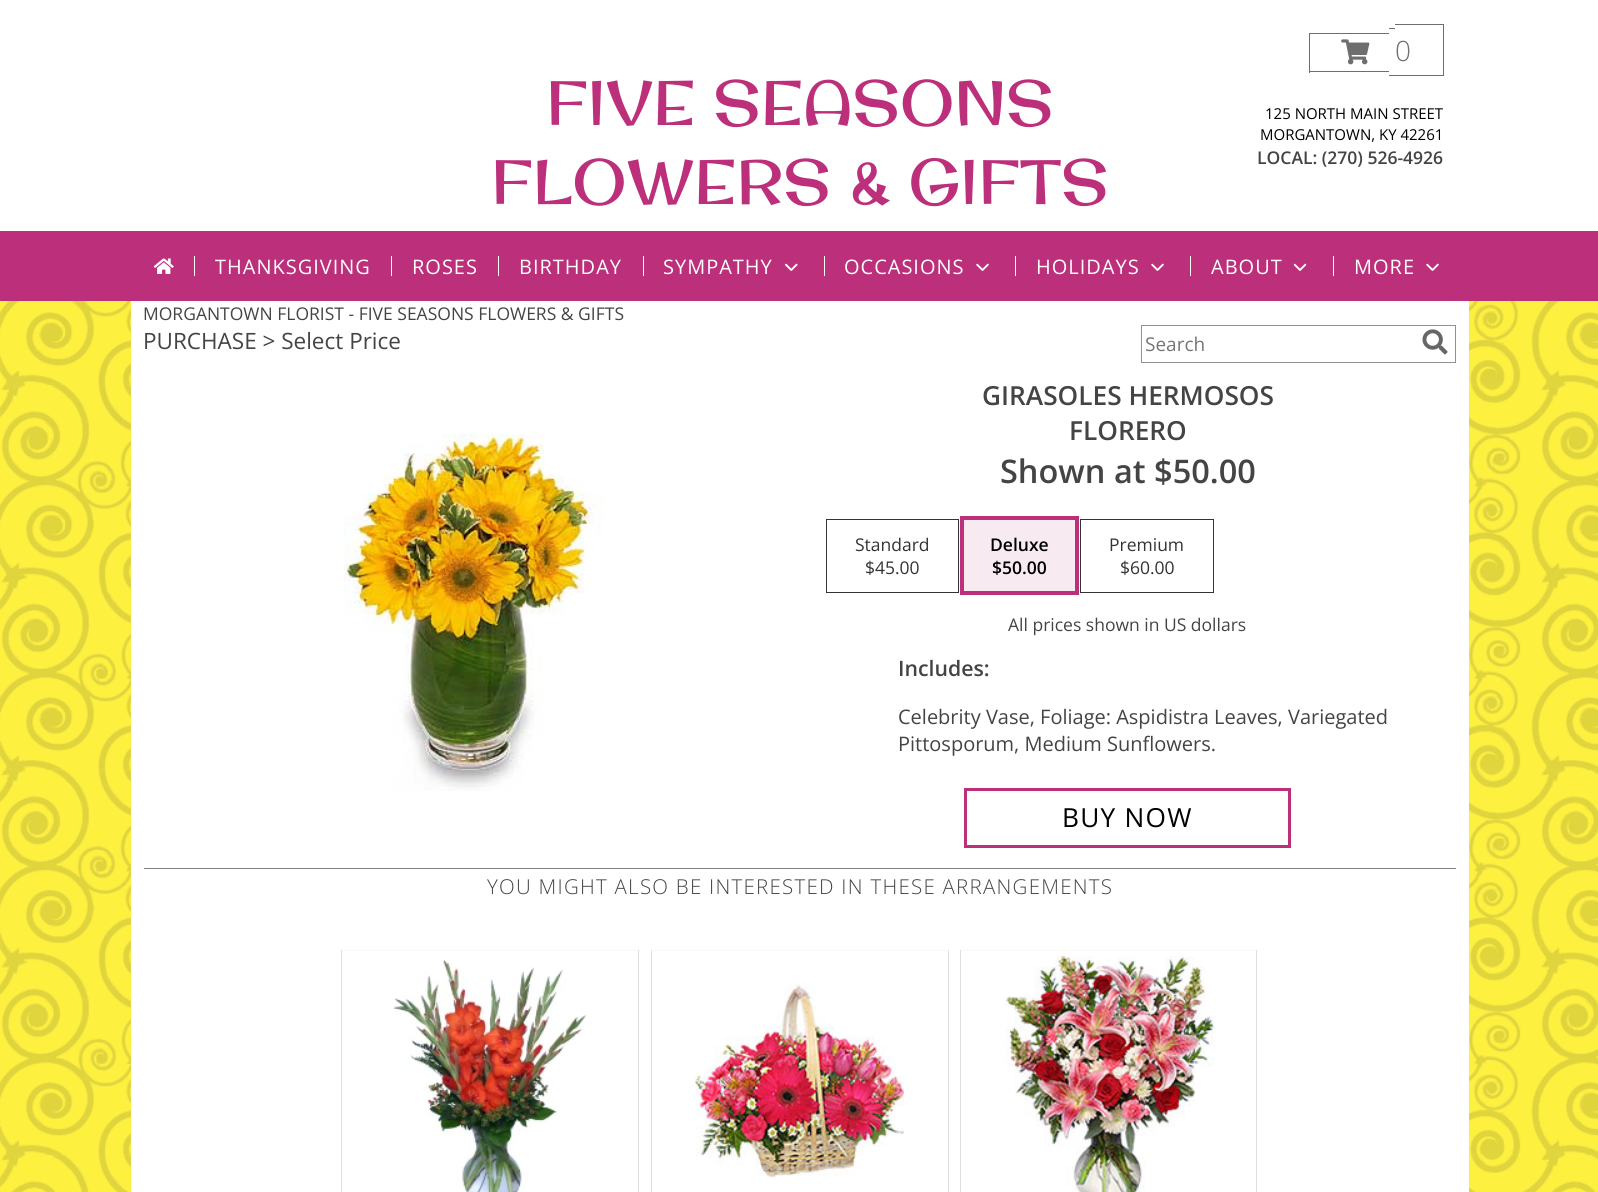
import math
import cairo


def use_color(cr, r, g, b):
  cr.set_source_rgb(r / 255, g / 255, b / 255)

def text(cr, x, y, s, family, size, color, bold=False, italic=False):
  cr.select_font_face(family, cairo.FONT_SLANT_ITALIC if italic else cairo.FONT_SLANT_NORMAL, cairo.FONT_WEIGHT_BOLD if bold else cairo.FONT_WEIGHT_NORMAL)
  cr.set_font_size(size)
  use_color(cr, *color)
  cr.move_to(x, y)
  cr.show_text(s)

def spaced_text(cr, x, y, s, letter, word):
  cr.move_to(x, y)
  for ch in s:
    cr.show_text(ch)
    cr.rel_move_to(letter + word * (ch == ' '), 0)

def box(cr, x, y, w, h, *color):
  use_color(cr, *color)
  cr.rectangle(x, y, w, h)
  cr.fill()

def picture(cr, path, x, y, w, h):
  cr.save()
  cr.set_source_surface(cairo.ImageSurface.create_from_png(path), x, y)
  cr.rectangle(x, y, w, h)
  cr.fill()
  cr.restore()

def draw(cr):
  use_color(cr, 254, 240, 62)
  cr.paint()
  picture(cr, "img_01.png", 0, 301, 1598, 891)
  box(cr, 131, 301, 1338, 891, 255, 255, 255)
  box(cr, 0, 0, 1598, 231, 255, 255, 255)
  box(cr, 1309, 33, 80, 1, 110, 110, 110)
  box(cr, 1309, 71, 80, 1, 110, 110, 110)
  box(cr, 1309, 33, 1, 40, 110, 110, 110)
  box(cr, 1389, 28, 6, 1, 110, 110, 110)
  box(cr, 1389, 75, 6, 1, 110, 110, 110)
  box(cr, 1395, 24, 49, 1, 110, 110, 110)
  box(cr, 1443, 24, 1, 52, 110, 110, 110)
  box(cr, 1395, 75, 49, 1, 110, 110, 110)
  picture(cr, "img_02.png", 1341, 39, 29, 26)
  box(cr, 0, 231, 1598, 70, 188, 47, 123)
  picture(cr, "img_03.png", 154, 258, 20, 16)
  box(cr, 194, 256, 1, 20, 255, 255, 255)
  box(cr, 391, 256, 1, 20, 255, 255, 255)
  box(cr, 498, 256, 1, 20, 255, 255, 255)
  box(cr, 643, 256, 1, 20, 255, 255, 255)
  picture(cr, "img_04.png", 785, 263, 13, 8)
  box(cr, 824, 256, 1, 20, 255, 255, 255)
  picture(cr, "img_05.png", 976, 263, 13, 8)
  box(cr, 1015, 256, 1, 20, 255, 255, 255)
  picture(cr, "img_05.png", 1151, 263, 13, 8)
  box(cr, 1190, 256, 1, 20, 255, 255, 255)
  picture(cr, "img_06.png", 1293, 263, 14, 8)
  box(cr, 1333, 256, 1, 20, 255, 255, 255)
  picture(cr, "img_05.png", 1426, 263, 13, 8)
  cr.rectangle(1141.5, 325.5, 314, 37)
  use_color(cr, 145, 145, 145)
  cr.set_line_width(1)
  cr.stroke()
  picture(cr, "img_07.png", 1422, 329, 26, 26)
  picture(cr, "img_08.png", 343, 433, 262, 358)
  cr.rectangle(826.5, 519.5, 132, 73)
  use_color(cr, 51, 51, 51)
  cr.stroke()
  cr.rectangle(962, 518, 115, 75)
  use_color(cr, 188, 47, 123)
  cr.set_line_width(4)
  cr.stroke()
  box(cr, 964, 520, 111, 71, 248, 234, 241)
  cr.rectangle(1080.5, 519.5, 133, 73)
  use_color(cr, 51, 51, 51)
  cr.set_line_width(1)
  cr.stroke()
  cr.rectangle(965.5, 789.5, 324, 57)
  use_color(cr, 188, 47, 123)
  cr.set_line_width(3)
  cr.stroke()
  box(cr, 144, 868, 1312, 1, 128, 128, 128)
  box(cr, 341, 950, 298, 1, 249, 249, 249)
  box(cr, 638, 950, 1, 242, 226, 222, 221)
  box(cr, 341, 950, 1, 242, 226, 222, 221)
  picture(cr, "img_09.png", 393, 959, 194, 233)
  box(cr, 651, 950, 298, 1, 249, 249, 249)
  box(cr, 948, 950, 1, 242, 226, 222, 221)
  box(cr, 651, 950, 1, 242, 226, 222, 221)
  picture(cr, "img_10.png", 695, 984, 209, 194)
  box(cr, 960, 950, 298, 1, 249, 249, 249)
  box(cr, 1256, 950, 1, 242, 226, 222, 221)
  box(cr, 960, 950, 1, 242, 226, 222, 221)
  picture(cr, "img_11.png", 1005, 956, 209, 236)
  text(cr, 546, 125, "FIVE SEASONS", "Original Surfer", 62.5, (188, 47, 123))
  text(cr, 491, 204, "FLOWERS & GIFTS", "Original Surfer", 62.5, (188, 47, 123))
  text(cr, 1395, 61, "0", "Open Sans Light", 28, (110, 110, 110))
  text(cr, 1265, 119, "125 NORTH MAIN STREET", "Open Sans", 15, (0, 0, 0))
  text(cr, 1260, 140, "MORGANTOWN, KY 42261", "Open Sans", 15, (0, 0, 0))
  text(cr, 1257, 164, "LOCAL: (270) 526-4926", "Open Sans SemiBold", 17.5, (68, 68, 68))
  cr.select_font_face("Open Sans")
  cr.set_font_size(20)
  use_color(cr, 255, 255, 255)
  spaced_text(cr, 215, 274, "THANKSGIVING", 1, 0)
  spaced_text(cr, 412, 274, "ROSES", 1, 0)
  spaced_text(cr, 519, 274, "BIRTHDAY", 1, 0)
  spaced_text(cr, 663, 274, "SYMPATHY", 1, 0)
  spaced_text(cr, 844, 274, "OCCASIONS", 1, 0)
  spaced_text(cr, 1036, 274, "HOLIDAYS", 1, 0)
  spaced_text(cr, 1211, 274, "ABOUT", 1, 0)
  spaced_text(cr, 1354, 274, "MORE", 1, 0)
  text(cr, 143, 320, "MORGANTOWN FLORIST - FIVE SEASONS FLOWERS & GIFTS", "Open Sans", 17.5, (68, 68, 68))
  text(cr, 143, 349, "PURCHASE > Select Price", "Open Sans", 22.5, (68, 68, 68))
  text(cr, 1145, 351, "Search", "Open Sans", 19, (117, 117, 117))
  text(cr, 982, 405, "GIRASOLES HERMOSOS", "Open Sans SemiBold", 26.25, (68, 68, 68))
  text(cr, 1069, 440, "FLORERO", "Open Sans SemiBold", 26.25, (68, 68, 68))
  text(cr, 1000, 483, "Shown at $50.00", "Open Sans SemiBold", 32.5, (68, 68, 68))
  text(cr, 855, 551, "Standard", "Open Sans", 17.5, (51, 51, 51))
  text(cr, 865, 574, "$45.00", "Open Sans", 17.5, (51, 51, 51))
  text(cr, 990, 551, "Deluxe", "Open Sans SemiBold", 17.5, (0, 0, 0))
  text(cr, 992, 574, "$50.00", "Open Sans SemiBold", 17.5, (0, 0, 0))
  text(cr, 1109, 551, "Premium", "Open Sans", 17.5, (51, 51, 51))
  text(cr, 1120, 574, "$60.00", "Open Sans", 17.5, (51, 51, 51))
  text(cr, 1008, 631, "All prices shown in US dollars", "Open Sans", 17.5, (68, 68, 68))
  text(cr, 898, 676, "Includes:", "Open Sans SemiBold", 21.25, (68, 68, 68))
  text(cr, 898, 724, "Celebrity Vase, Foliage: Aspidistra Leaves, Variegated", "Open Sans", 20, (68, 68, 68))
  text(cr, 898, 751, "Pittosporum, Medium Sunflowers.", "Open Sans", 20, (68, 68, 68))
  cr.set_font_size(26.25)
  use_color(cr, 0, 0, 0)
  spaced_text(cr, 1062, 827, "BUY NOW", 1.25, 0)
  cr.select_font_face("Open Sans Light")
  cr.set_font_size(20.5)
  use_color(cr, 68, 68, 68)
  spaced_text(cr, 487, 894, "YOU MIGHT ALSO BE INTERESTED IN THESE ARRANGEMENTS", 1.25, 0)


surface = cairo.ImageSurface(cairo.FORMAT_RGB24, 1598, 1192)
cr = cairo.Context(surface)
options = cairo.FontOptions()
options.set_hint_metrics(cairo.HINT_METRICS_OFF)
options.set_hint_style(cairo.HINT_STYLE_NONE)
cr.set_font_options(options)
cr.set_miter_limit(4)
draw(cr)
surface.write_to_png("out.png")
